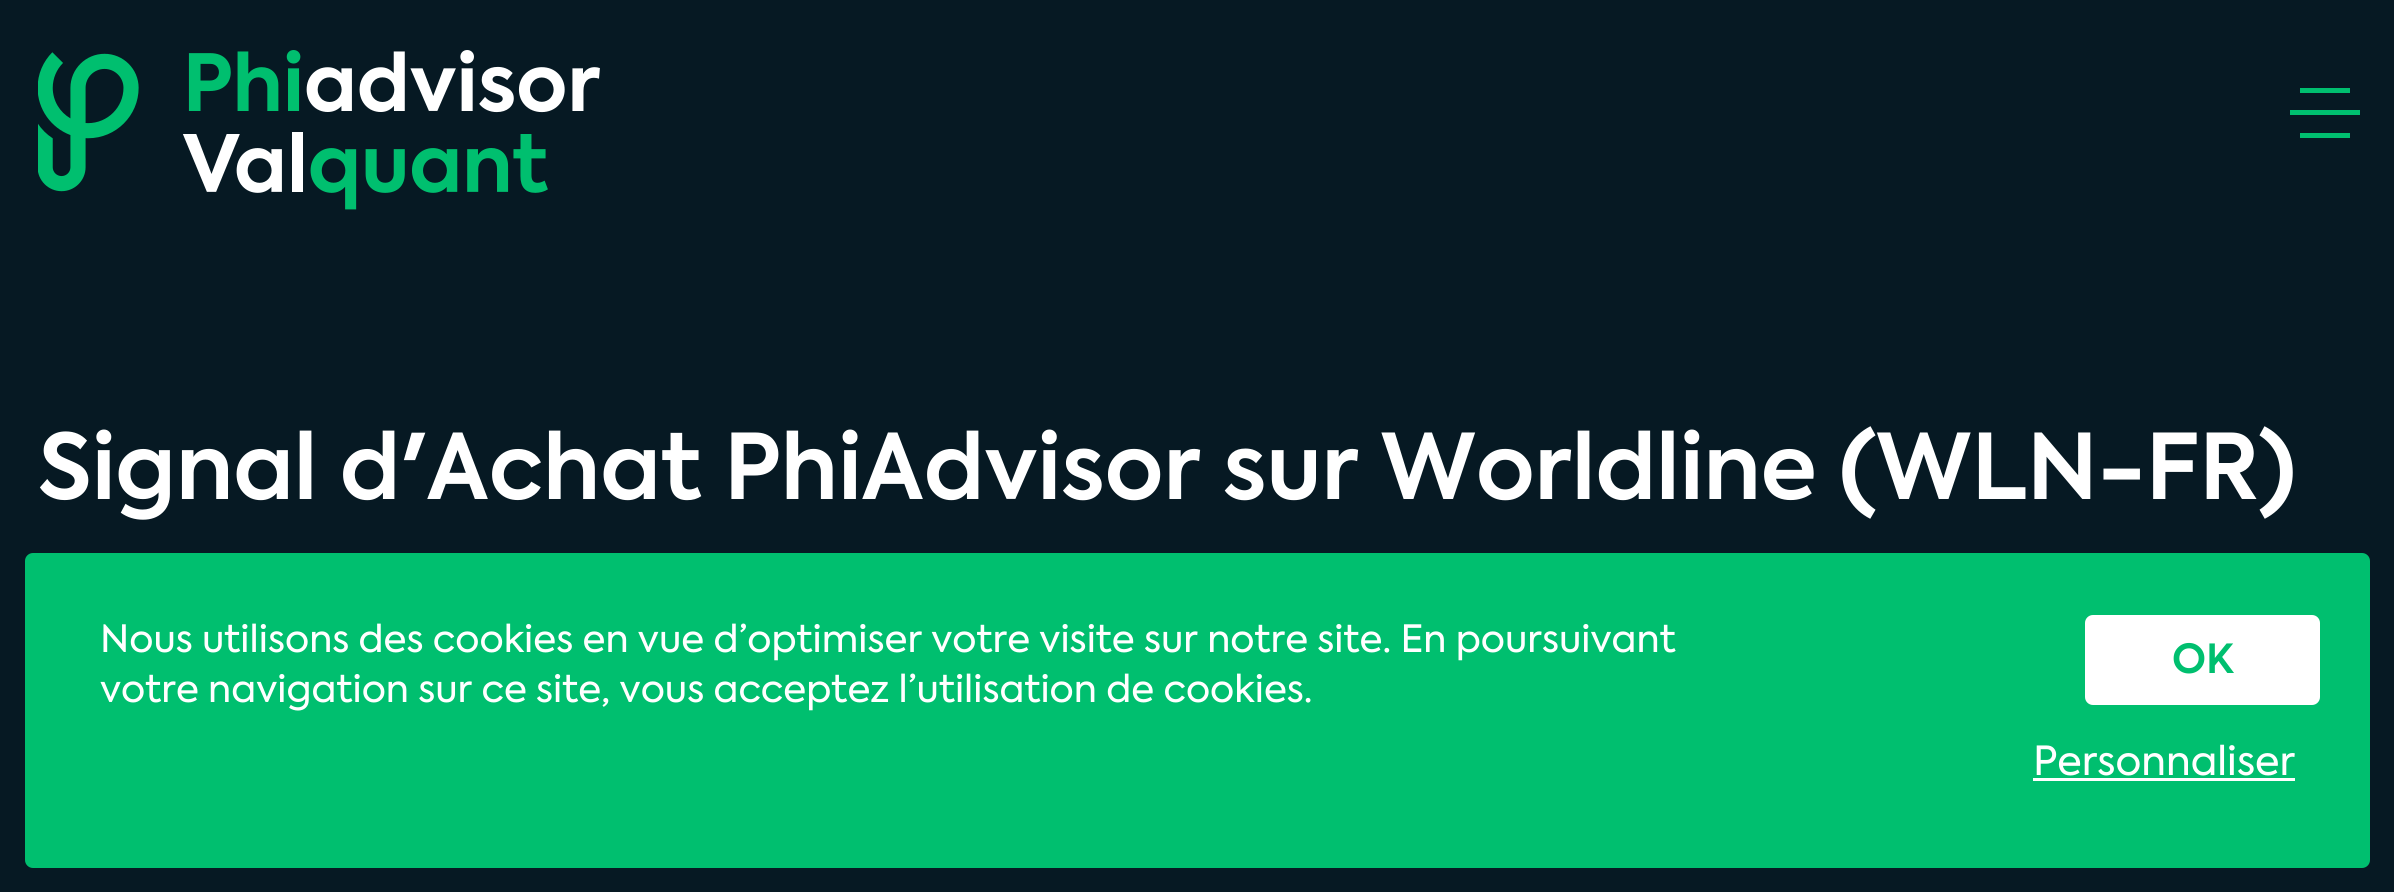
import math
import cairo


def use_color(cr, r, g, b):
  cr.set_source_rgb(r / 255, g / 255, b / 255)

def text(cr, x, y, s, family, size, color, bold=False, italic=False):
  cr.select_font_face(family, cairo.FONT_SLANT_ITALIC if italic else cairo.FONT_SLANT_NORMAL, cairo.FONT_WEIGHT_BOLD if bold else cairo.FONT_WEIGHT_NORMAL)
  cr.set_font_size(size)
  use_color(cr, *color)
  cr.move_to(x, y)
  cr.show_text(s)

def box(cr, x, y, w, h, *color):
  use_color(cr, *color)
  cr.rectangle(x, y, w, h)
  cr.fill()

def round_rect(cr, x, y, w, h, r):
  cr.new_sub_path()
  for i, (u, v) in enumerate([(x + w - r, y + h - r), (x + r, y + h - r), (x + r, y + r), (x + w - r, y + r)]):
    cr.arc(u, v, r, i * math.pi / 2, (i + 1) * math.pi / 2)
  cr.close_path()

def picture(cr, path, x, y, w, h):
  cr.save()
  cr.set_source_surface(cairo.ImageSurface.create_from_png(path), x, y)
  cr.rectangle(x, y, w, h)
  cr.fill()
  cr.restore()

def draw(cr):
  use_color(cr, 6, 25, 35)
  cr.paint()
  picture(cr, "img_01.png", 38, 50, 562, 160)
  box(cr, 2290, 110, 70, 5, 0, 191, 111)
  box(cr, 2300, 88, 50, 5, 0, 191, 111)
  box(cr, 2300, 133, 50, 5, 0, 191, 111)
  round_rect(cr, 25, 553, 2345, 315, 8)
  cr.fill()
  use_color(cr, 255, 255, 255)
  round_rect(cr, 2087.5, 617.5, 230, 85, 5.5)
  cr.fill_preserve()
  cr.set_line_width(5)
  cr.stroke()
  box(cr, 2033, 778, 262, 3, 255, 255, 255)
  text(cr, 38, 499, "Signal d'Achat PhiAdvisor sur Worldline (WLN-FR)", "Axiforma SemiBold", 90, (255, 255, 255))
  text(cr, 100, 652, "Nous utilisons des cookies en vue d’optimiser votre visite sur notre site. En poursuivant", "Axiforma", 37.5, (255, 255, 255))
  text(cr, 100, 702, "votre navigation sur ce site, vous acceptez l’utilisation de cookies.", "Axiforma", 37.5, (255, 255, 255))
  text(cr, 2172, 673, "OK", "Axiforma SemiBold", 40, (0, 191, 111))
  text(cr, 2033, 775, "Personnaliser", "Axiforma", 40, (255, 255, 255))


surface = cairo.ImageSurface(cairo.FORMAT_RGB24, 2394, 892)
cr = cairo.Context(surface)
options = cairo.FontOptions()
options.set_hint_metrics(cairo.HINT_METRICS_OFF)
options.set_hint_style(cairo.HINT_STYLE_NONE)
cr.set_font_options(options)
cr.set_miter_limit(4)
draw(cr)
surface.write_to_png("out.png")
